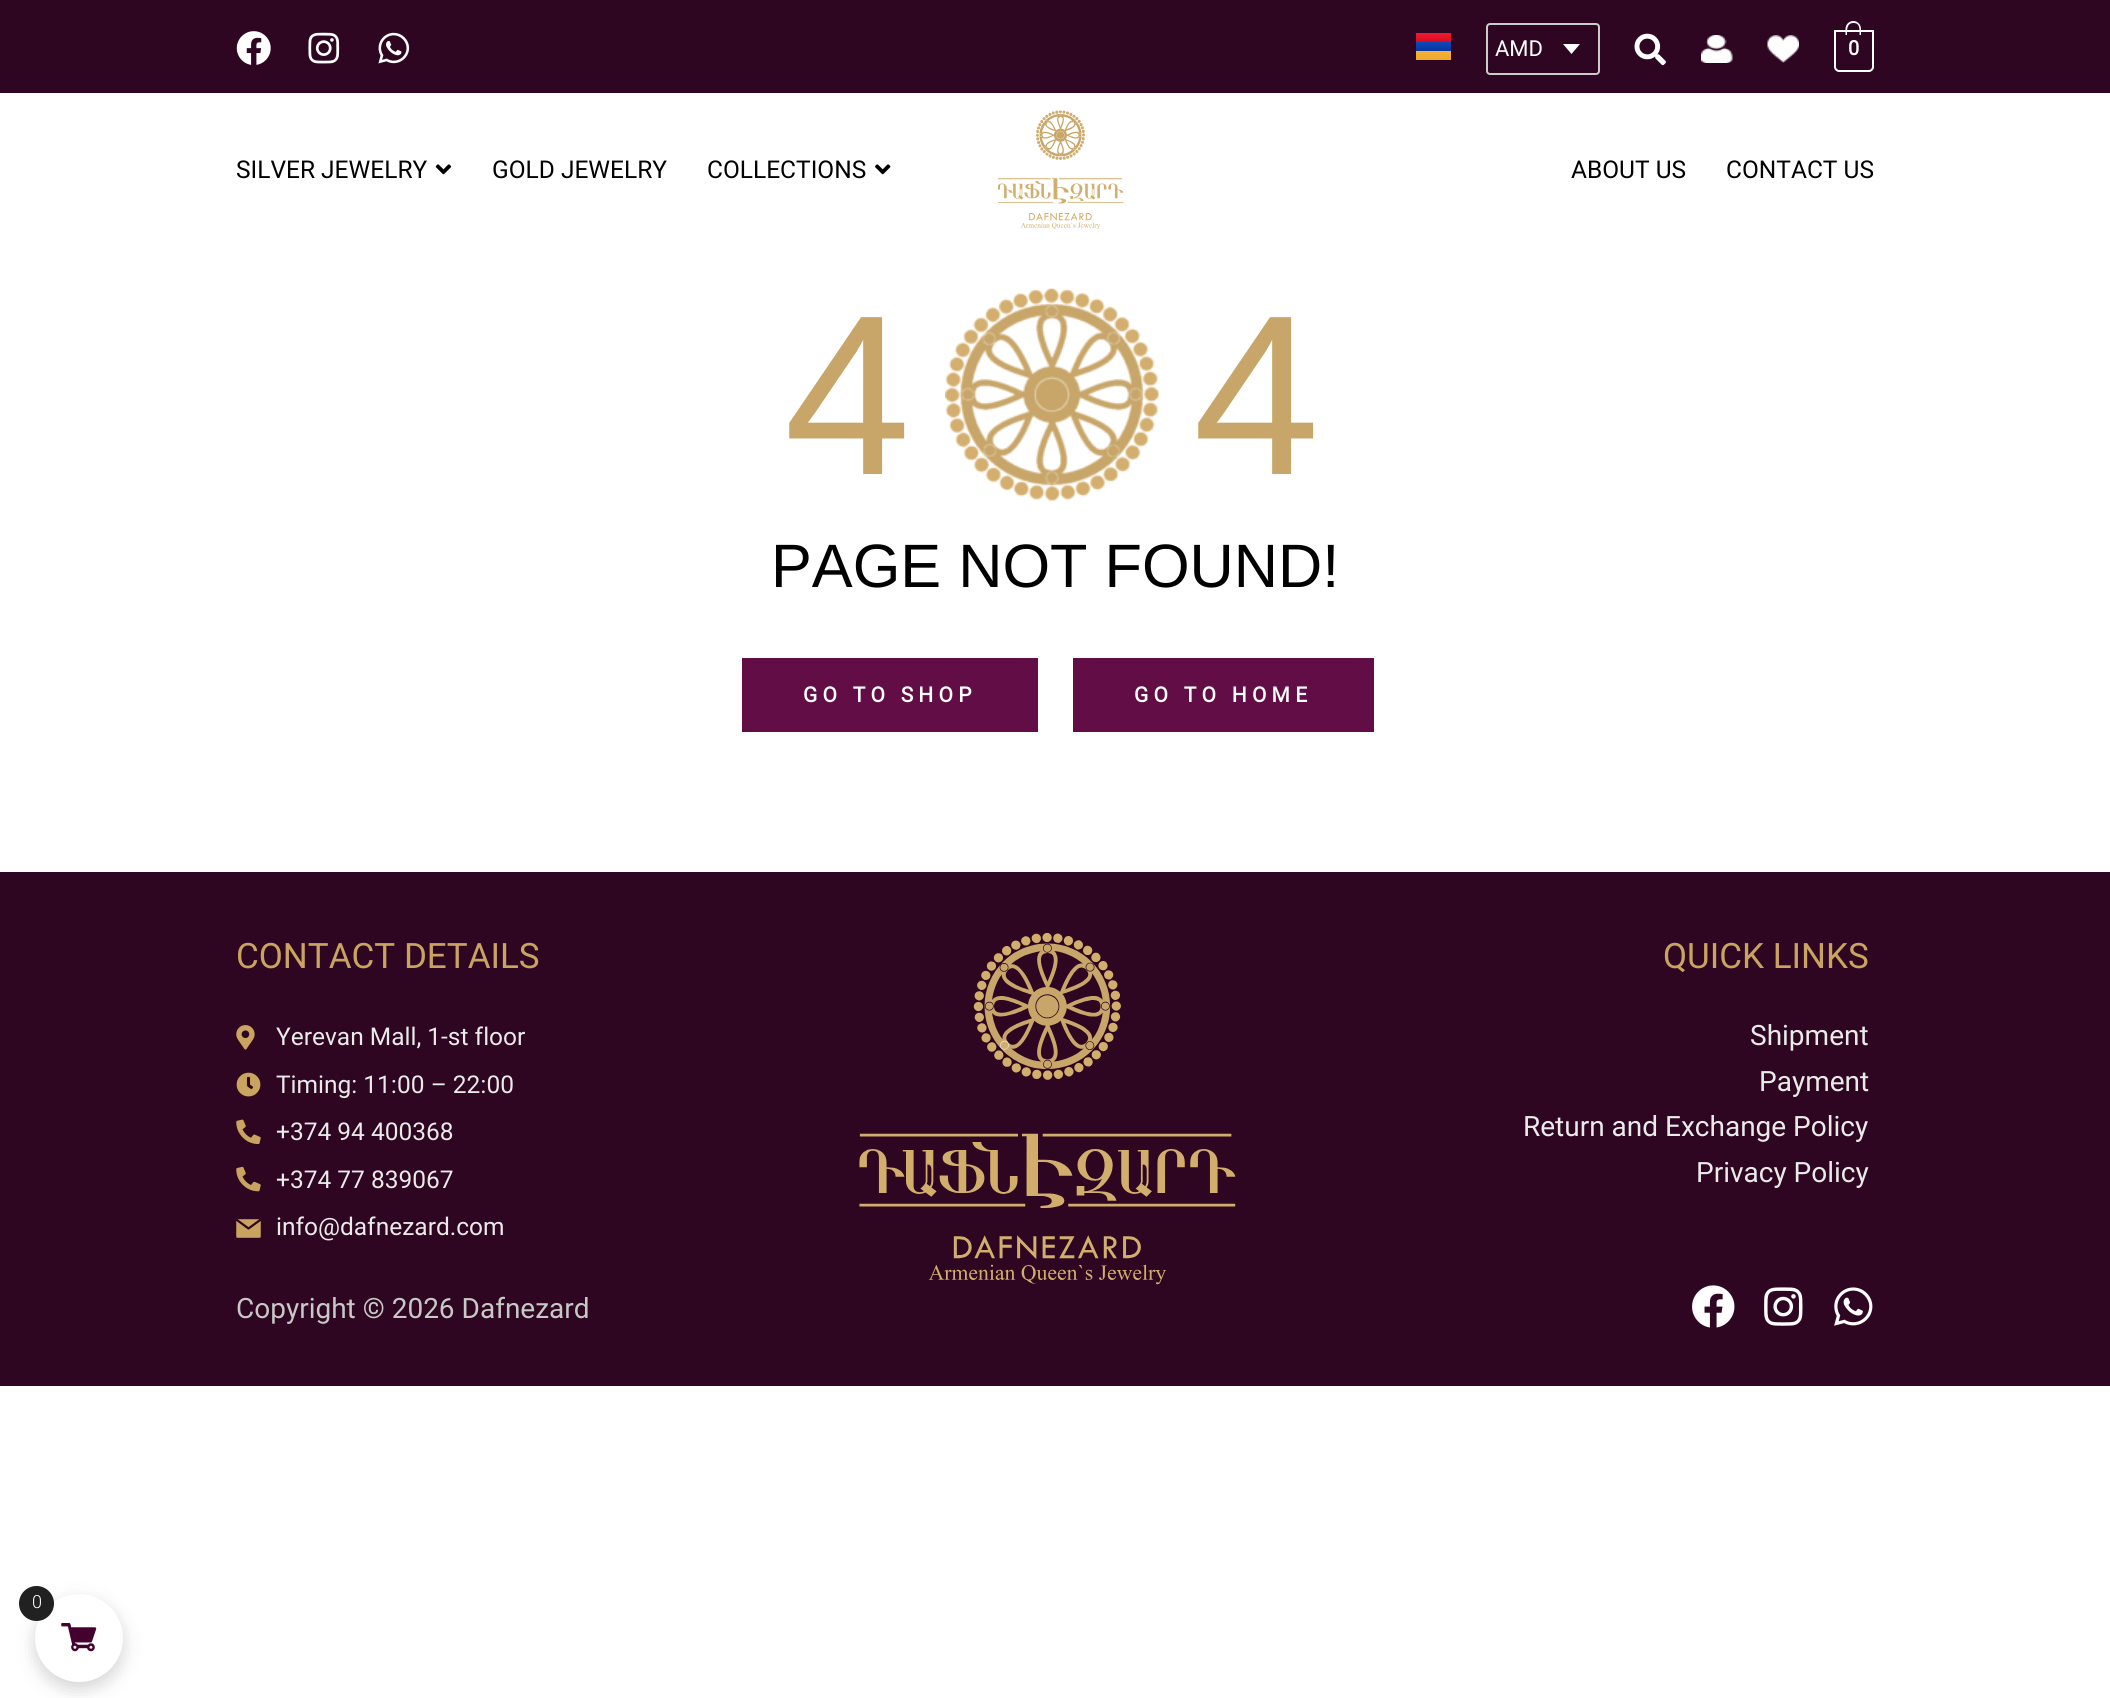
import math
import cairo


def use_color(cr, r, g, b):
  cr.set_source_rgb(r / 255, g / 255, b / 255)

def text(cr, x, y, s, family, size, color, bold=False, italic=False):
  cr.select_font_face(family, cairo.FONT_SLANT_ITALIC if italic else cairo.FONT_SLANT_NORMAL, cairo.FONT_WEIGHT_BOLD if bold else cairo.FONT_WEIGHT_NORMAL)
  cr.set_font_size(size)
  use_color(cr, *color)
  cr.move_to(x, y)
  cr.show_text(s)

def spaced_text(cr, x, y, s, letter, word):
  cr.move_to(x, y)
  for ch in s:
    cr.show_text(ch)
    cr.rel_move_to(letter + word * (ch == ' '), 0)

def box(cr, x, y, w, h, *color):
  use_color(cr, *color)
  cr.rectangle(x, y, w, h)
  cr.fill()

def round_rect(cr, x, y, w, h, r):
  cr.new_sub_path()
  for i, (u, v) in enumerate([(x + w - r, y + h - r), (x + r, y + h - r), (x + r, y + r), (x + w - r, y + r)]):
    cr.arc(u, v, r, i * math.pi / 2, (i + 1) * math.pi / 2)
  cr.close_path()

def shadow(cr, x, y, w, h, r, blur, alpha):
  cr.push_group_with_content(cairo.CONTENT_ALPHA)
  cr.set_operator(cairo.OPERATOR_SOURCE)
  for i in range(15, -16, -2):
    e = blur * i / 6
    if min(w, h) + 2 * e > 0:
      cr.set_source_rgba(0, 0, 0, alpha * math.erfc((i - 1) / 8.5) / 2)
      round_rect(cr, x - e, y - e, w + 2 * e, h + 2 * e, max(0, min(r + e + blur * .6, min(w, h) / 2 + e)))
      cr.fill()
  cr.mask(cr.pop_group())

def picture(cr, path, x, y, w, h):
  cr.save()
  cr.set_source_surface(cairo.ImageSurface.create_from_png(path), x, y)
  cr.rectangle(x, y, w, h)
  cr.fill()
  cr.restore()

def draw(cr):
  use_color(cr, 255, 255, 255)
  cr.paint()
  box(cr, 0, 0, 2110, 93, 46, 6, 33)
  picture(cr, "img_01.png", 236, 31, 35, 34)
  picture(cr, "img_02.png", 308, 32, 32, 32)
  picture(cr, "img_03.png", 378, 32, 32, 32)
  gradient = cairo.LinearGradient(1432, 33, 1432, 42)
  gradient.add_color_stop_rgba(0, 0.941, 0.11, 0.192, 1)
  gradient.add_color_stop_rgba(1, 0.843, 0.039, 0.122, 1)
  cr.set_source(gradient)
  cr.rectangle(1416, 33, 35, 9)
  cr.fill()
  gradient = cairo.LinearGradient(1432, 42, 1432, 51)
  gradient.add_color_stop_rgba(0, 0.063, 0.278, 0.725, 1)
  gradient.add_color_stop_rgba(1, 0.024, 0.216, 0.616, 1)
  cr.set_source(gradient)
  cr.rectangle(1416, 42, 35, 9)
  cr.fill()
  gradient = cairo.LinearGradient(1432, 51, 1432, 60)
  gradient.add_color_stop_rgba(0, 0.961, 0.698, 0.243, 1)
  gradient.add_color_stop_rgba(1, 0.941, 0.655, 0.157, 1)
  cr.set_source(gradient)
  cr.rectangle(1416, 51, 35, 9)
  cr.fill()
  round_rect(cr, 1487, 24, 112, 50, 3)
  use_color(cr, 204, 204, 204)
  cr.stroke()
  use_color(cr, 255, 255, 255)
  cr.new_path()
  cr.move_to(1563, 44)
  cr.line_to(1580, 44)
  cr.line_to(1571.5, 54)
  cr.close_path()
  cr.fill()
  picture(cr, "img_04.png", 1634, 33, 32, 33)
  picture(cr, "img_05.png", 1701, 35, 32, 28)
  picture(cr, "img_06.png", 1767, 35, 32, 28)
  cr.new_path()
  cr.move_to(1835, 31)
  cr.line_to(1873, 31)
  cr.line_to(1873, 67)
  cr.curve_to(1873, 69, 1871, 71, 1869, 71)
  cr.line_to(1839, 71)
  cr.curve_to(1837, 71, 1835, 69, 1835, 67)
  cr.close_path()
  cr.stroke()
  cr.set_fill_rule(cairo.FILL_RULE_EVEN_ODD)
  cr.new_path()
  cr.move_to(1853.5, 21)
  cr.curve_to(1857.5, 21, 1861, 24.5, 1861, 29)
  cr.line_to(1861, 35)
  cr.line_to(1845.5, 35)
  cr.line_to(1845.5, 29)
  cr.curve_to(1845.5, 24.5, 1849, 21, 1853.5, 21)
  cr.close_path()
  cr.move_to(1853.5, 23)
  cr.curve_to(1860.5, 23, 1859.5, 30, 1859.5, 35)
  cr.line_to(1847, 35)
  cr.curve_to(1847, 30, 1846.5, 23, 1853.5, 23)
  cr.close_path()
  cr.fill()
  picture(cr, "img_07.png", 435, 164, 17, 11)
  picture(cr, "img_08.png", 875, 164, 16, 11)
  picture(cr, "img_09.png", 998, 110, 126, 119)
  picture(cr, "img_10.png", 945, 288, 214, 213)
  box(cr, 742, 658, 296, 74, 98, 13, 70)
  box(cr, 1073, 658, 301, 74, 98, 13, 70)
  box(cr, 0, 872, 2110, 514, 46, 6, 33)
  picture(cr, "img_11.png", 236, 1025, 19, 25)
  picture(cr, "img_12.png", 236, 1072, 25, 25)
  picture(cr, "img_13.png", 236, 1119, 25, 26)
  picture(cr, "img_14.png", 236, 1166, 25, 26)
  picture(cr, "img_15.png", 236, 1219, 25, 19)
  picture(cr, "img_16.png", 859, 933, 377, 352)
  picture(cr, "img_17.png", 1692, 1285, 43, 43)
  picture(cr, "img_18.png", 1764, 1287, 39, 39)
  picture(cr, "img_19.png", 1834, 1287, 39, 39)
  use_color(cr, 0, 0, 0)
  shadow(cr, 35, 1601, 88, 88, 44, 9, 0.17)
  use_color(cr, 255, 255, 255)
  cr.arc(79, 1638, 44, 0, 2 * math.pi)
  cr.fill()
  use_color(cr, 33, 33, 33)
  cr.arc(36.5, 1603.5, 17.5, 0, 2 * math.pi)
  cr.fill()
  picture(cr, "img_20.png", 61, 1623, 36, 29)
  text(cr, 1495, 56, "AMD", "Roboto", 22, (255, 255, 255))
  text(cr, 1848, 55, "0", "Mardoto", 20, (255, 255, 255), bold=True)
  text(cr, 236, 178, "SILVER JEWELRY", "Mardoto", 24.5, (0, 0, 0))
  text(cr, 492, 178, "GOLD JEWELRY", "Mardoto", 24.5, (0, 0, 0))
  text(cr, 707, 178, "COLLECTIONS", "Mardoto", 24.5, (0, 0, 0))
  text(cr, 1571, 178, "ABOUT US", "Mardoto", 24.5, (0, 0, 0))
  text(cr, 1726, 178, "CONTACT US", "Mardoto", 24.5, (0, 0, 0))
  text(cr, 784, 474, "4", "Liberation Sans", 228, (200, 166, 105))
  text(cr, 1193, 474, "4", "Liberation Sans", 228, (200, 166, 105))
  text(cr, 771, 587, "PAGE NOT FOUND!", "Liberation Sans", 61.25, (0, 0, 0))
  cr.select_font_face("Mardoto", cairo.FONT_SLANT_NORMAL, cairo.FONT_WEIGHT_BOLD)
  cr.set_font_size(21)
  use_color(cr, 255, 255, 255)
  spaced_text(cr, 803, 702, "GO TO SHOP", 5.25, 0)
  spaced_text(cr, 1134, 702, "GO TO HOME", 5.25, 0)
  text(cr, 236, 968, "CONTACT DETAILS", "Mardoto", 35, (201, 164, 96))
  text(cr, 276, 1045, "Yerevan Mall, 1-st floor", "Mardoto", 24.5, (234, 234, 234))
  text(cr, 276, 1093, "Timing: 11։00 – 22։00", "Mardoto", 24.5, (234, 234, 234))
  text(cr, 276, 1140, "+374 94 400368", "Mardoto", 24.5, (234, 234, 234))
  text(cr, 276, 1188, "+374 77 839067", "Mardoto", 24.5, (234, 234, 234))
  text(cr, 276, 1235, "info@dafnezard.com", "Mardoto", 24.5, (234, 234, 234))
  text(cr, 1663, 968, "QUICK LINKS", "Mardoto", 35, (201, 164, 96))
  text(cr, 1750, 1045, "Shipment", "Roboto", 28, (234, 234, 234))
  text(cr, 1759, 1091, "Payment", "Roboto", 28, (234, 234, 234))
  text(cr, 1523, 1136, "Return and Exchange Policy", "Roboto", 28, (234, 234, 234))
  text(cr, 1696, 1182, "Privacy Policy", "Roboto", 28, (234, 234, 234))
  text(cr, 236, 1318, "Copyright © 2026 Dafnezard", "Mardoto", 28, (200, 200, 200))
  text(cr, 32, 1608, "0", "Roboto Light", 18, (255, 255, 255))


surface = cairo.ImageSurface(cairo.FORMAT_RGB24, 2110, 1698)
cr = cairo.Context(surface)
options = cairo.FontOptions()
options.set_hint_metrics(cairo.HINT_METRICS_OFF)
options.set_hint_style(cairo.HINT_STYLE_NONE)
cr.set_font_options(options)
cr.set_miter_limit(4)
draw(cr)
surface.write_to_png("out.png")
